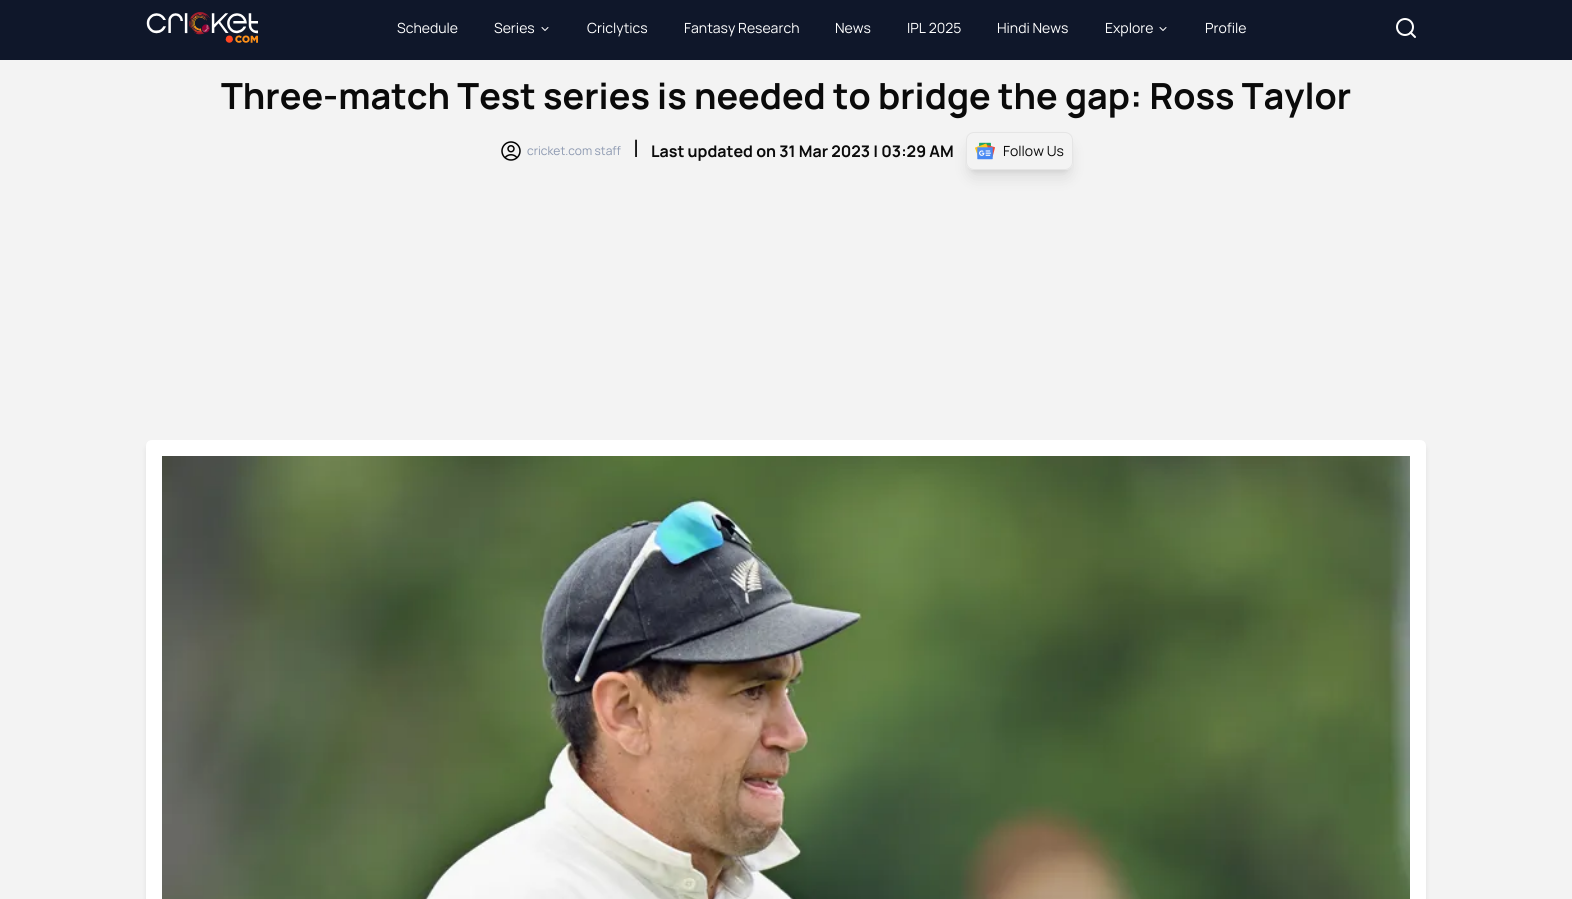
import math
import cairo


def use_color(cr, r, g, b):
  cr.set_source_rgb(r / 255, g / 255, b / 255)

def text(cr, x, y, s, family, size, color, bold=False, italic=False):
  cr.select_font_face(family, cairo.FONT_SLANT_ITALIC if italic else cairo.FONT_SLANT_NORMAL, cairo.FONT_WEIGHT_BOLD if bold else cairo.FONT_WEIGHT_NORMAL)
  cr.set_font_size(size)
  use_color(cr, *color)
  cr.move_to(x, y)
  cr.show_text(s)

def box(cr, x, y, w, h, *color):
  use_color(cr, *color)
  cr.rectangle(x, y, w, h)
  cr.fill()

def round_rect(cr, x, y, w, h, r):
  cr.new_sub_path()
  for i, (u, v) in enumerate([(x + w - r, y + h - r), (x + r, y + h - r), (x + r, y + r), (x + w - r, y + r)]):
    cr.arc(u, v, r, i * math.pi / 2, (i + 1) * math.pi / 2)
  cr.close_path()

def shadow(cr, x, y, w, h, r, blur, alpha):
  cr.push_group_with_content(cairo.CONTENT_ALPHA)
  cr.set_operator(cairo.OPERATOR_SOURCE)
  for i in range(15, -16, -2):
    e = blur * i / 6
    if min(w, h) + 2 * e > 0:
      cr.set_source_rgba(0, 0, 0, alpha * math.erfc((i - 1) / 8.5) / 2)
      round_rect(cr, x - e, y - e, w + 2 * e, h + 2 * e, max(0, min(r + e + blur * .6, min(w, h) / 2 + e)))
      cr.fill()
  cr.mask(cr.pop_group())

def picture(cr, path, x, y, w, h):
  cr.save()
  cr.set_source_surface(cairo.ImageSurface.create_from_png(path), x, y)
  cr.rectangle(x, y, w, h)
  cr.fill()
  cr.restore()

def draw(cr):
  use_color(cr, 243, 243, 243)
  cr.paint()
  box(cr, 0, 0, 1572, 60, 15, 23, 42)
  picture(cr, "img_01.png", 146, 12, 112, 31)
  cr.new_path()
  cr.move_to(542, 27.5)
  cr.line_to(545, 30.5)
  cr.line_to(548, 27.5)
  use_color(cr, 255, 255, 255)
  cr.set_line_width(1)
  cr.set_line_cap(cairo.LINE_CAP_ROUND)
  cr.set_line_join(cairo.LINE_JOIN_ROUND)
  cr.stroke()
  cr.new_path()
  cr.move_to(1160, 27.5)
  cr.line_to(1163, 30.5)
  cr.line_to(1166, 27.5)
  cr.stroke()
  cr.arc(1405, 27, 8, 0, 2 * math.pi)
  cr.set_line_width(2)
  cr.set_line_cap(cairo.LINE_CAP_BUTT)
  cr.set_line_join(cairo.LINE_JOIN_MITER)
  cr.stroke()
  cr.new_path()
  cr.move_to(1415, 37)
  cr.line_to(1410.5, 32.5)
  cr.set_line_cap(cairo.LINE_CAP_ROUND)
  cr.set_line_join(cairo.LINE_JOIN_ROUND)
  cr.stroke()
  picture(cr, "img_02.png", 501, 141, 20, 20)
  cr.save()
  cr.set_fill_rule(cairo.FILL_RULE_EVEN_ODD)
  cr.new_path()
  cr.move_to(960, 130)
  cr.line_to(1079, 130)
  cr.line_to(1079, 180)
  cr.line_to(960, 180)
  cr.close_path()
  cr.move_to(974, 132)
  cr.line_to(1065, 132)
  cr.curve_to(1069.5, 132, 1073, 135.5, 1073, 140)
  cr.line_to(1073, 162)
  cr.curve_to(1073, 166.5, 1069.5, 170, 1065, 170)
  cr.line_to(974, 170)
  cr.curve_to(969.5, 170, 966, 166.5, 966, 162)
  cr.line_to(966, 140)
  cr.curve_to(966, 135.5, 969.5, 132, 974, 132)
  cr.close_path()
  cr.clip()
  use_color(cr, 0, 0, 0)
  shadow(cr, 970, 140, 99, 30, 4, 3, 0.1)
  cr.restore()
  cr.save()
  cr.set_fill_rule(cairo.FILL_RULE_EVEN_ODD)
  cr.new_path()
  cr.move_to(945, 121)
  cr.line_to(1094, 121)
  cr.line_to(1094, 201)
  cr.line_to(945, 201)
  cr.close_path()
  cr.move_to(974, 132)
  cr.line_to(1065, 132)
  cr.curve_to(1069.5, 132, 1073, 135.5, 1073, 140)
  cr.line_to(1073, 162)
  cr.curve_to(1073, 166.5, 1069.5, 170, 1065, 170)
  cr.line_to(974, 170)
  cr.curve_to(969.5, 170, 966, 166.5, 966, 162)
  cr.line_to(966, 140)
  cr.curve_to(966, 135.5, 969.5, 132, 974, 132)
  cr.close_path()
  cr.clip()
  use_color(cr, 0, 0, 0)
  shadow(cr, 969, 145, 101, 32, 5, 7.5, 0.1)
  cr.restore()
  round_rect(cr, 966.5, 132.5, 106, 37, 7.5)
  use_color(cr, 229, 229, 229)
  cr.set_line_width(1)
  cr.set_line_cap(cairo.LINE_CAP_BUTT)
  cr.set_line_join(cairo.LINE_JOIN_MITER)
  cr.stroke()
  picture(cr, "img_03.png", 975, 142, 20, 18)
  use_color(cr, 0, 0, 0)
  shadow(cr, 147, 445, 1278, 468, 5, 3, 0.1)
  use_color(cr, 255, 255, 255)
  cr.new_path()
  cr.move_to(152, 440)
  cr.line_to(1420, 440)
  cr.curve_to(1423.5, 440, 1426, 442.5, 1426, 446)
  cr.line_to(1426, 899)
  cr.line_to(146, 899)
  cr.line_to(146, 446)
  cr.curve_to(146, 442.5, 148.5, 440, 152, 440)
  cr.close_path()
  cr.fill()
  picture(cr, "img_04.png", 162, 456, 1248, 443)
  text(cr, 397, 33, "Schedule", "Manrope", 14, (255, 255, 255))
  text(cr, 494, 33, "Series", "Manrope", 14, (255, 255, 255))
  text(cr, 587, 33, "Criclytics", "Manrope", 14, (255, 255, 255))
  text(cr, 684, 33, "Fantasy Research", "Manrope", 14, (255, 255, 255))
  text(cr, 835, 33, "News", "Manrope", 14, (255, 255, 255))
  text(cr, 907, 33, "IPL 2025", "Manrope", 14, (255, 255, 255))
  text(cr, 997, 33, "Hindi News", "Manrope", 14, (255, 255, 255))
  text(cr, 1105, 33, "Explore", "Manrope", 14, (255, 255, 255))
  text(cr, 1205, 33, "Profile", "Manrope", 14, (255, 255, 255))
  text(cr, 221, 109, "Three-match Test series is needed to bridge the gap: Ross Taylor", "Manrope", 36, (10, 10, 10), bold=True)
  text(cr, 527, 155, "cricket.com staff", "Manrope", 12, (140, 152, 176))
  text(cr, 633, 157, "|", "Manrope", 24, (10, 10, 10))
  text(cr, 651, 157, "Last updated on 31 Mar 2023 | 03:29 AM", "Manrope", 16, (10, 10, 10), bold=True)
  text(cr, 1003, 156, "Follow Us", "Manrope", 14, (10, 10, 10))


surface = cairo.ImageSurface(cairo.FORMAT_RGB24, 1572, 899)
cr = cairo.Context(surface)
options = cairo.FontOptions()
options.set_hint_metrics(cairo.HINT_METRICS_OFF)
options.set_hint_style(cairo.HINT_STYLE_NONE)
cr.set_font_options(options)
cr.set_miter_limit(4)
draw(cr)
surface.write_to_png("out.png")
